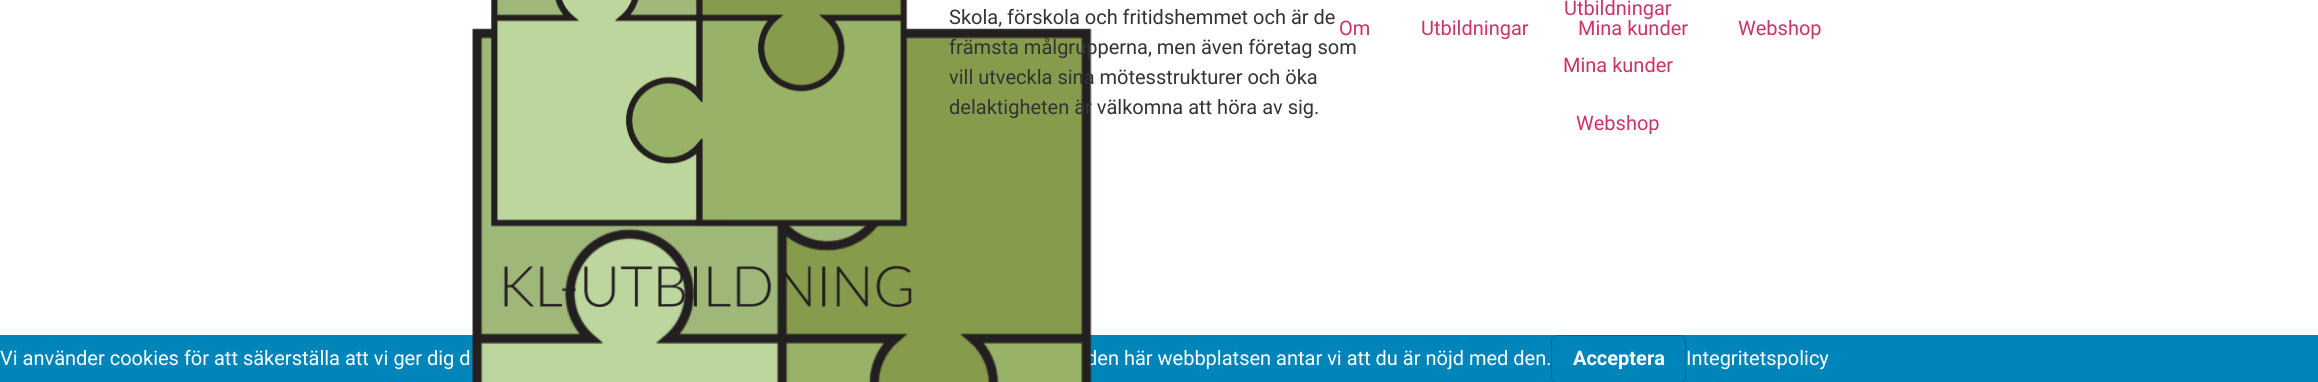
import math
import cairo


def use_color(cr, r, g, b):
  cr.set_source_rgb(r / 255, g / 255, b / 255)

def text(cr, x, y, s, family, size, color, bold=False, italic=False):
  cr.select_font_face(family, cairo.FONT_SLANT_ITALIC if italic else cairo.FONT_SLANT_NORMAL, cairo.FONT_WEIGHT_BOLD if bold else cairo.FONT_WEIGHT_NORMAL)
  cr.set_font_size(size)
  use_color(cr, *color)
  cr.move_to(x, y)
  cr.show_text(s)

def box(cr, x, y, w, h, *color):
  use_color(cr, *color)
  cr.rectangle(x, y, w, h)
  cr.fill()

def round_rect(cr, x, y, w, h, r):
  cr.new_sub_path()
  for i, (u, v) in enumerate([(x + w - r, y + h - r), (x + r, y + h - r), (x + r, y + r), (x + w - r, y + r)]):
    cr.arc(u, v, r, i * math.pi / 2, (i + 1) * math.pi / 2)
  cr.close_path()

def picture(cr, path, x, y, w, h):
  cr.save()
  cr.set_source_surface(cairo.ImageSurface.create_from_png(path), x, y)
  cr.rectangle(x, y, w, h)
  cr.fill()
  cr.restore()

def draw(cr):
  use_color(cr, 255, 255, 255)
  cr.paint()
  box(cr, 0, 335, 2318, 47, 0, 133, 186)
  round_rect(cr, 1551.5, 335.5, 134, 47, 5.5)
  use_color(cr, 0, 103, 153)
  cr.set_line_width(1)
  cr.stroke()
  text(cr, 949, 24, "Skola, förskola och fritidshemmet och är de", "Roboto", 20, (51, 51, 51))
  text(cr, 1564, 15, "Utbildningar", "Roboto", 20, (204, 51, 102))
  text(cr, 1563, 72, "Mina kunder", "Roboto", 20, (204, 51, 102))
  text(cr, 1576, 130, "Webshop", "Roboto", 20, (204, 51, 102))
  text(cr, 1339, 35, "Om", "Roboto", 20, (204, 51, 102))
  text(cr, 1421, 35, "Utbildningar", "Roboto", 20, (204, 51, 102))
  text(cr, 1578, 35, "Mina kunder", "Roboto", 20, (204, 51, 102))
  text(cr, 1738, 35, "Webshop", "Roboto", 20, (204, 51, 102))
  text(cr, 0, 365, "Vi använder cookies för att säkerställa att vi ger dig d", "Roboto", 20, (255, 255, 255))
  text(cr, 1086, 365, "den här webbplatsen antar vi att du är nöjd med den.", "Roboto", 20, (255, 255, 255))
  picture(cr, "img_02.png", 472, 28, 620, 354)
  text(cr, 949, 114, "delaktigheten är välkomna att höra av sig.", "Roboto", 20, (51, 51, 51))
  text(cr, 949, 84, "vill utveckla sina mötesstrukturer och öka", "Roboto", 20, (51, 51, 51))
  text(cr, 949, 54, "främsta målgrupperna, men även företag som", "Roboto", 20, (51, 51, 51))
  picture(cr, "img_01.png", 491, 0, 421, 307)
  text(cr, 1573, 365, "Acceptera", "Roboto", 20, (255, 255, 255), bold=True)
  text(cr, 1686, 365, "Integritetspolicy", "Roboto", 20, (255, 255, 255))


surface = cairo.ImageSurface(cairo.FORMAT_RGB24, 2318, 382)
cr = cairo.Context(surface)
options = cairo.FontOptions()
options.set_hint_metrics(cairo.HINT_METRICS_OFF)
options.set_hint_style(cairo.HINT_STYLE_NONE)
cr.set_font_options(options)
cr.set_miter_limit(4)
draw(cr)
surface.write_to_png("out.png")
